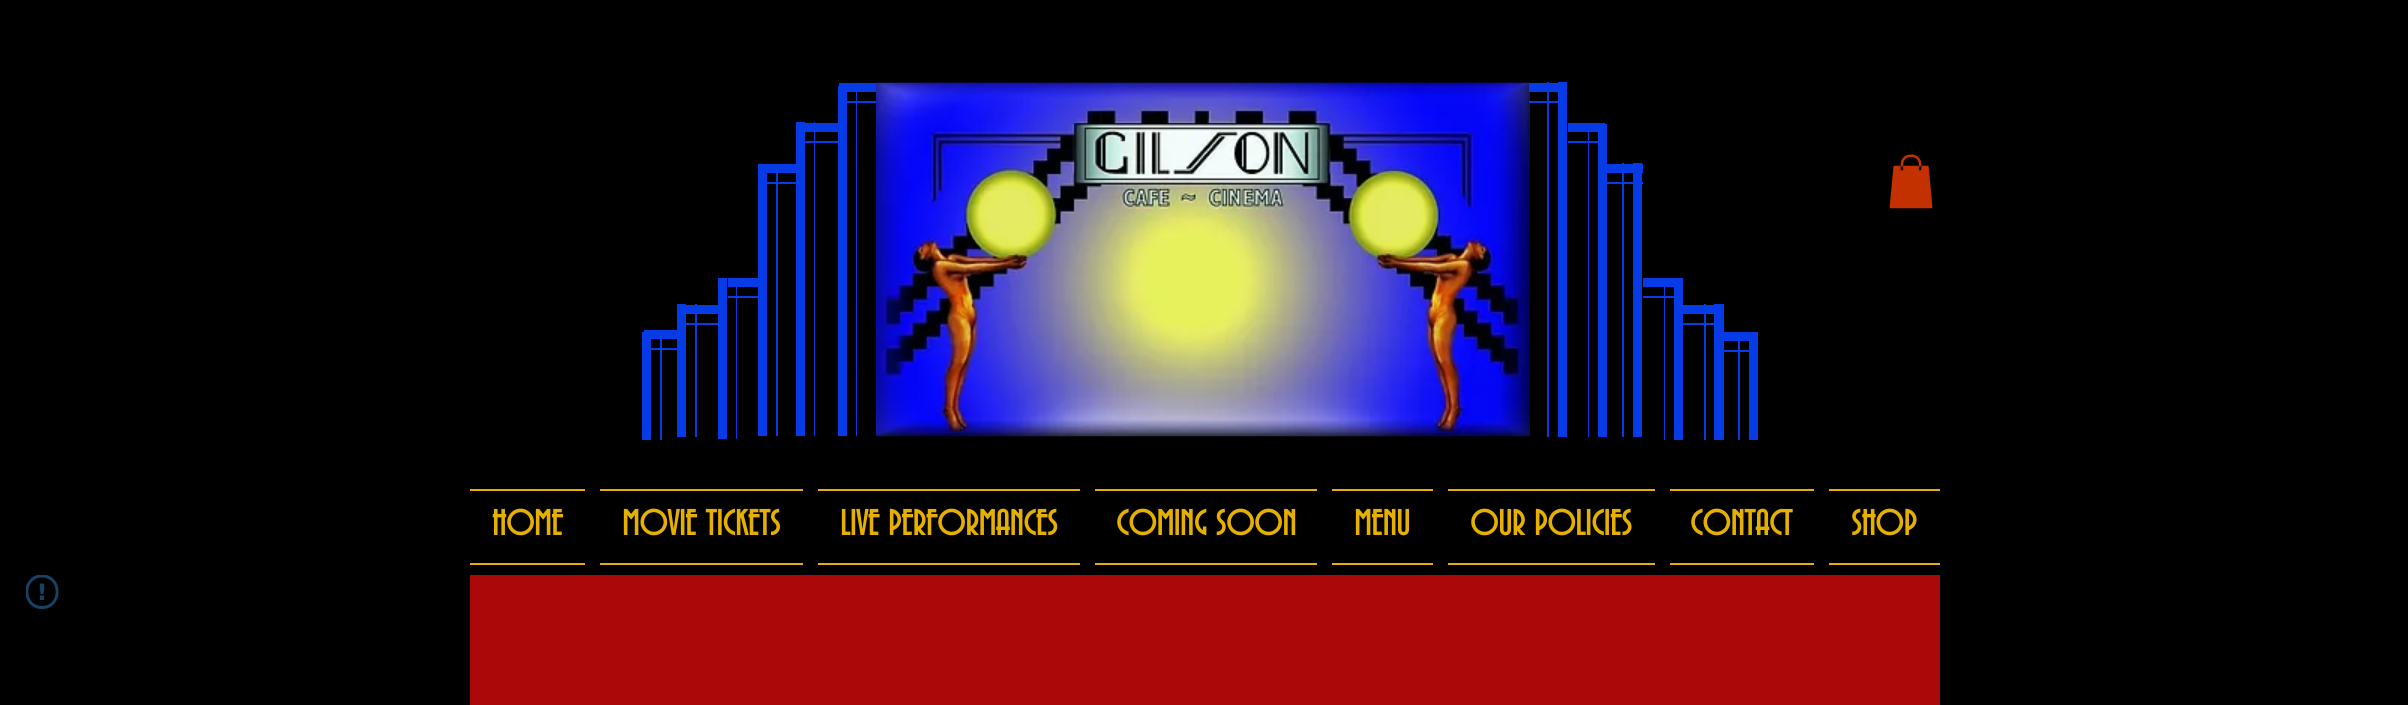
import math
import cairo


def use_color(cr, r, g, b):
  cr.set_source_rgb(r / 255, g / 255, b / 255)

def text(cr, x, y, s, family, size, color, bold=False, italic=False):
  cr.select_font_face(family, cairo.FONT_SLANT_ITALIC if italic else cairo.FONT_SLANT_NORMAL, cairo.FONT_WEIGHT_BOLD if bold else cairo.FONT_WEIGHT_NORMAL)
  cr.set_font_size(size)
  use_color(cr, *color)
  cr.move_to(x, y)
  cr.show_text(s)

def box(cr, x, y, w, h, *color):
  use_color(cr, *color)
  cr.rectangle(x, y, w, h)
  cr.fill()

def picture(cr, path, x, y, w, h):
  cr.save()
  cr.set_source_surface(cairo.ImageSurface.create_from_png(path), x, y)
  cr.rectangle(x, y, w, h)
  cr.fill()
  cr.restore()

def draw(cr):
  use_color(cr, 0, 0, 0)
  cr.paint()
  box(cr, 839, 83, 37, 9, 7, 59, 230)
  box(cr, 839, 101, 37, 2, 7, 59, 230)
  picture(cr, "img_01.png", 876, 82, 654, 355)
  box(cr, 1529, 101, 37, 2, 7, 59, 230)
  box(cr, 1558, 82, 9, 355, 7, 59, 230)
  box(cr, 1529, 83, 29, 9, 7, 59, 230)
  box(cr, 1547, 82, 2, 355, 7, 59, 230)
  box(cr, 838, 86, 9, 350, 7, 59, 230)
  box(cr, 803, 141, 37, 2, 7, 59, 230)
  box(cr, 796, 122, 9, 314, 7, 59, 230)
  box(cr, 805, 123, 33, 9, 7, 59, 230)
  box(cr, 814, 122, 1, 314, 7, 59, 230)
  box(cr, 856, 86, 1, 350, 7, 59, 230)
  box(cr, 1568, 123, 37, 9, 7, 59, 230)
  box(cr, 1568, 141, 37, 2, 7, 59, 230)
  box(cr, 761, 182, 37, 2, 7, 59, 230)
  box(cr, 758, 164, 9, 272, 7, 59, 230)
  box(cr, 776, 173, 2, 263, 7, 59, 230)
  box(cr, 1605, 182, 38, 2, 7, 59, 230)
  box(cr, 1598, 124, 9, 313, 7, 59, 230)
  box(cr, 1588, 124, 1, 313, 7, 59, 230)
  box(cr, 1607, 164, 36, 9, 7, 59, 230)
  box(cr, 1633, 163, 9, 274, 7, 59, 230)
  box(cr, 1622, 163, 2, 274, 7, 59, 230)
  picture(cr, "img_02.png", 1889, 154, 44, 55)
  box(cr, 767, 164, 29, 9, 7, 59, 230)
  box(cr, 718, 278, 9, 161, 7, 59, 230)
  box(cr, 728, 296, 37, 2, 7, 59, 230)
  box(cr, 736, 287, 1, 152, 7, 59, 230)
  box(cr, 728, 278, 30, 9, 7, 59, 230)
  box(cr, 1643, 278, 31, 9, 7, 59, 230)
  box(cr, 1643, 296, 37, 2, 7, 59, 230)
  box(cr, 681, 323, 45, 2, 7, 59, 230)
  box(cr, 677, 304, 9, 133, 7, 59, 230)
  box(cr, 686, 305, 32, 9, 7, 59, 230)
  box(cr, 695, 304, 2, 133, 7, 59, 230)
  box(cr, 1714, 304, 10, 136, 7, 59, 230)
  box(cr, 1704, 304, 2, 136, 7, 59, 230)
  box(cr, 1682, 323, 37, 2, 7, 59, 230)
  box(cr, 1674, 278, 9, 162, 7, 59, 230)
  box(cr, 1664, 287, 1, 153, 7, 59, 230)
  box(cr, 1683, 305, 31, 9, 7, 59, 230)
  box(cr, 644, 330, 33, 9, 7, 59, 230)
  box(cr, 644, 348, 37, 2, 7, 59, 230)
  box(cr, 642, 332, 9, 108, 7, 59, 230)
  box(cr, 660, 332, 2, 108, 7, 59, 230)
  box(cr, 1724, 332, 25, 9, 7, 59, 230)
  box(cr, 1721, 350, 28, 2, 7, 59, 230)
  box(cr, 1749, 332, 9, 108, 7, 59, 230)
  box(cr, 1738, 341, 2, 99, 7, 59, 230)
  box(cr, 470, 489, 115, 2, 230, 176, 0)
  box(cr, 470, 563, 115, 2, 230, 176, 0)
  box(cr, 600, 489, 203, 2, 230, 176, 0)
  box(cr, 600, 563, 203, 2, 230, 176, 0)
  box(cr, 818, 489, 262, 2, 230, 176, 0)
  box(cr, 818, 563, 262, 2, 230, 176, 0)
  box(cr, 1095, 489, 222, 2, 230, 176, 0)
  box(cr, 1095, 563, 222, 2, 230, 176, 0)
  box(cr, 1332, 489, 101, 2, 230, 176, 0)
  box(cr, 1332, 563, 101, 2, 230, 176, 0)
  box(cr, 1448, 489, 207, 2, 230, 176, 0)
  box(cr, 1448, 563, 207, 2, 230, 176, 0)
  box(cr, 1670, 489, 144, 2, 230, 176, 0)
  box(cr, 1670, 563, 144, 2, 230, 176, 0)
  box(cr, 1829, 489, 111, 2, 230, 176, 0)
  box(cr, 1829, 563, 111, 2, 230, 176, 0)
  picture(cr, "img_03.png", 26, 575, 33, 34)
  box(cr, 470, 575, 1470, 130, 171, 9, 9)
  text(cr, 492, 535, "HOME", "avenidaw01", 37.5, (230, 176, 0), bold=True)
  text(cr, 622, 535, "MOVIE TICKETS", "avenidaw01", 37.5, (230, 176, 0), bold=True)
  text(cr, 840, 535, "LIVE PERFORMANCES", "avenidaw01", 37.5, (230, 176, 0), bold=True)
  text(cr, 1116, 535, "COMING SOON", "avenidaw01", 37.5, (230, 176, 0), bold=True)
  text(cr, 1354, 535, "MENU", "avenidaw01", 37.5, (230, 176, 0), bold=True)
  text(cr, 1470, 535, "OUR POLICIES", "avenidaw01", 37.5, (230, 176, 0), bold=True)
  text(cr, 1690, 535, "CONTACT", "avenidaw01", 37.5, (230, 176, 0), bold=True)
  text(cr, 1851, 535, "SHOP", "avenidaw01", 37.5, (230, 176, 0), bold=True)


surface = cairo.ImageSurface(cairo.FORMAT_RGB24, 2408, 705)
cr = cairo.Context(surface)
options = cairo.FontOptions()
options.set_hint_metrics(cairo.HINT_METRICS_OFF)
options.set_hint_style(cairo.HINT_STYLE_NONE)
cr.set_font_options(options)
cr.set_miter_limit(4)
draw(cr)
surface.write_to_png("out.png")
